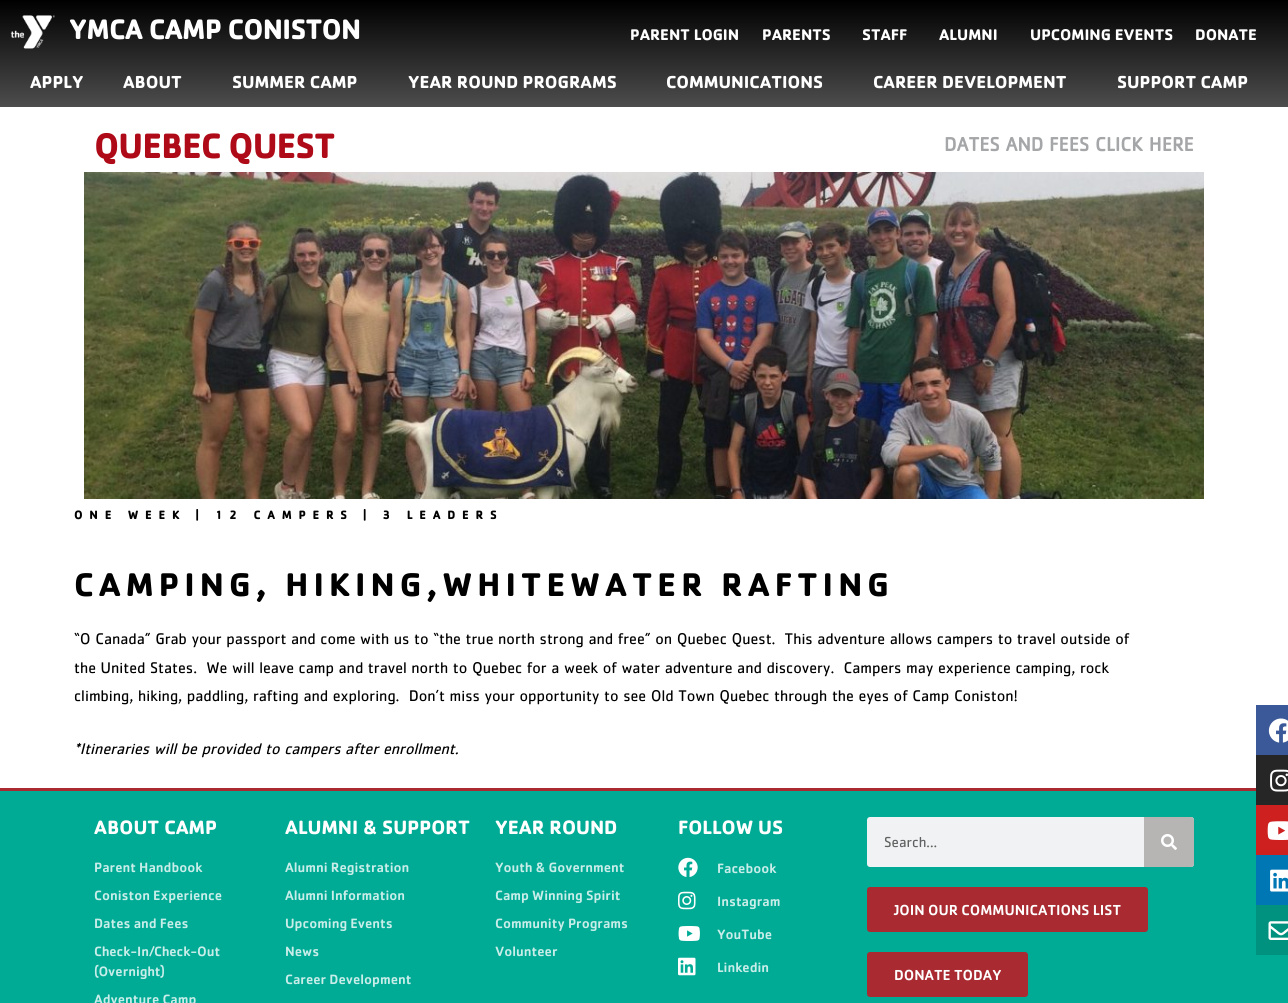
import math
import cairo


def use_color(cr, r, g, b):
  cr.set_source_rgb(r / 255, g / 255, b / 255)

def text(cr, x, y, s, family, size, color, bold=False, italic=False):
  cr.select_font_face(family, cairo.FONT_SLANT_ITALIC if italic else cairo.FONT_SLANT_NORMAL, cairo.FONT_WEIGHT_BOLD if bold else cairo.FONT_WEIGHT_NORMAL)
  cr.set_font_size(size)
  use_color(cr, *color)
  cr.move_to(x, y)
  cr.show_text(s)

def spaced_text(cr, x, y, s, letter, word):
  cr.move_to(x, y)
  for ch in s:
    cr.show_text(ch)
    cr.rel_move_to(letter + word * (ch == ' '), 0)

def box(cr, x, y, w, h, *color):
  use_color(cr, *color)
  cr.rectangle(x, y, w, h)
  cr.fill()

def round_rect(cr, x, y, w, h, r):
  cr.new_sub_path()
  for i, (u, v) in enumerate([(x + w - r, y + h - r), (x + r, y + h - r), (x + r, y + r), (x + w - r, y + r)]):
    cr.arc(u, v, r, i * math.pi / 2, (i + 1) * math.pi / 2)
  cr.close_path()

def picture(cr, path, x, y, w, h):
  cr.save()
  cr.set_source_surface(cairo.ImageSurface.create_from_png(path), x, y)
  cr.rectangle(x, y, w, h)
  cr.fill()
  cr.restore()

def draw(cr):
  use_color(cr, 255, 255, 255)
  cr.paint()
  gradient = cairo.LinearGradient(644, 0, 644, 107)
  gradient.add_color_stop_rgba(0, 0, 0, 0, 1)
  gradient.add_color_stop_rgba(1, 0.302, 0.302, 0.302, 1)
  cr.set_source(gradient)
  cr.rectangle(0, 0, 1288, 107)
  cr.fill()
  picture(cr, "img_01.png", 10, 15, 45, 34)
  picture(cr, "img_02.png", 84, 172, 1120, 327)
  box(cr, 0, 791, 1288, 212, 0, 171, 149)
  box(cr, 0, 788, 1256, 3, 169, 43, 49)
  picture(cr, "img_03.png", 678, 857, 20, 20)
  picture(cr, "img_04.png", 678, 891, 18, 19)
  picture(cr, "img_05.png", 678, 926, 22, 15)
  picture(cr, "img_06.png", 678, 957, 18, 19)
  use_color(cr, 241, 242, 243)
  round_rect(cr, 867, 817, 327, 50, 3)
  cr.fill()
  use_color(cr, 183, 180, 180)
  cr.new_path()
  cr.move_to(1144, 817)
  cr.line_to(1191, 817)
  cr.curve_to(1192.5, 817, 1194, 818.5, 1194, 820)
  cr.line_to(1194, 864)
  cr.curve_to(1194, 865.5, 1192.5, 867, 1191, 867)
  cr.line_to(1144, 867)
  cr.close_path()
  cr.fill()
  picture(cr, "img_07.png", 1161, 834, 16, 16)
  box(cr, 1256, 705, 32, 50, 59, 89, 152)
  picture(cr, "img_08.png", 1268, 718, 20, 25)
  box(cr, 1256, 755, 32, 50, 38, 38, 38)
  picture(cr, "img_09.png", 1270, 769, 18, 23)
  box(cr, 1256, 805, 32, 50, 205, 32, 31)
  picture(cr, "img_10.png", 1267, 821, 21, 19)
  box(cr, 1256, 855, 32, 50, 0, 119, 181)
  picture(cr, "img_11.png", 1270, 869, 18, 23)
  box(cr, 1256, 905, 32, 50, 0, 146, 127)
  picture(cr, "img_12.png", 1268, 921, 20, 19)
  use_color(cr, 169, 43, 49)
  round_rect(cr, 868.5, 888.5, 278, 42, 1.5)
  cr.fill_preserve()
  cr.set_line_width(3)
  cr.stroke()
  round_rect(cr, 868.5, 953.5, 158, 42, 1.5)
  cr.fill_preserve()
  cr.stroke()
  text(cr, 69, 39, "YMCA CAMP CONISTON", "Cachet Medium", 28, (255, 255, 255), bold=True)
  text(cr, 630, 40, "PARENT LOGIN", "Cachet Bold", 16, (255, 255, 255), bold=True)
  text(cr, 762, 40, "PARENTS", "Cachet Bold", 16, (255, 255, 255), bold=True)
  text(cr, 862, 40, "STAFF", "Cachet Bold", 16, (255, 255, 255), bold=True)
  text(cr, 939, 40, "ALUMNI", "Cachet Bold", 16, (255, 255, 255), bold=True)
  text(cr, 1030, 40, "UPCOMING EVENTS", "Cachet Bold", 16, (255, 255, 255), bold=True)
  text(cr, 1195, 40, "DONATE", "Cachet Bold", 16, (255, 255, 255), bold=True)
  text(cr, 30, 88, "APPLY", "Cachet Bold", 18, (255, 255, 255), bold=True)
  text(cr, 123, 88, "ABOUT", "Cachet Bold", 18, (255, 255, 255), bold=True)
  text(cr, 232, 88, "SUMMER CAMP", "Cachet Bold", 18, (255, 255, 255), bold=True)
  text(cr, 408, 88, "YEAR ROUND PROGRAMS", "Cachet Bold", 18, (255, 255, 255), bold=True)
  text(cr, 666, 88, "COMMUNICATIONS", "Cachet Bold", 18, (255, 255, 255), bold=True)
  text(cr, 873, 88, "CAREER DEVELOPMENT", "Cachet Bold", 18, (255, 255, 255), bold=True)
  text(cr, 1117, 88, "SUPPORT CAMP", "Cachet Bold", 18, (255, 255, 255), bold=True)
  text(cr, 94, 158, "QUEBEC QUEST", "Cachet Medium", 35, (175, 10, 24), bold=True)
  text(cr, 944, 151, "DATES AND FEES CLICK HERE", "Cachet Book", 20, (164, 166, 168), bold=True)
  cr.select_font_face("Cachet Medium", cairo.FONT_SLANT_NORMAL, cairo.FONT_WEIGHT_BOLD)
  cr.set_font_size(12)
  use_color(cr, 0, 0, 0)
  spaced_text(cr, 74, 519, "ONE WEEK | 12 CAMPERS | 3 LEADERS", 7, 0)
  cr.select_font_face("Cachet Bold", cairo.FONT_SLANT_NORMAL, cairo.FONT_WEIGHT_BOLD)
  cr.set_font_size(34)
  spaced_text(cr, 74, 596, "CAMPING, HIKING,WHITEWATER RAFTING", 5.1, 0)
  text(cr, 74, 644, "“O Canada” Grab your passport and come with us to “the true north strong and free” on Quebec Quest.  This adventure allows campers to travel outside of", "Cachet Book", 16, (0, 0, 0))
  text(cr, 74, 673, "the United States.  We will leave camp and travel north to Quebec for a week of water adventure and discovery.  Campers may experience camping, rock", "Cachet Book", 16, (0, 0, 0))
  text(cr, 74, 701, "climbing, hiking, paddling, rafting and exploring.  Don’t miss your opportunity to see Old Town Quebec through the eyes of Camp Coniston!", "Cachet Book", 16, (0, 0, 0))
  text(cr, 74, 754, "*Itineraries will be provided to campers after enrollment.", "Cachet Book", 16, (0, 0, 0), italic=True)
  text(cr, 94, 834, "ABOUT CAMP", "Cachet Bold", 20, (255, 255, 255), bold=True)
  text(cr, 94, 872, "Parent Handbook", "Cachet Medium Medium", 14, (201, 237, 233))
  text(cr, 94, 900, "Coniston Experience", "Cachet Medium Medium", 14, (201, 237, 233))
  text(cr, 94, 928, "Dates and Fees", "Cachet Medium Medium", 14, (201, 237, 233))
  text(cr, 94, 956, "Check-In/Check-Out", "Cachet Medium Medium", 14, (201, 237, 233))
  text(cr, 94, 976, "(Overnight)", "Cachet Medium Medium", 14, (201, 237, 233))
  text(cr, 94, 1004, "Adventure Camp", "Cachet Medium Medium", 14, (201, 237, 233))
  text(cr, 285, 834, "ALUMNI & SUPPORT", "Cachet Bold", 20, (255, 255, 255), bold=True)
  text(cr, 285, 872, "Alumni Registration", "Cachet Medium Medium", 14, (201, 237, 233))
  text(cr, 285, 900, "Alumni Information", "Cachet Medium Medium", 14, (201, 237, 233))
  text(cr, 285, 928, "Upcoming Events", "Cachet Medium Medium", 14, (201, 237, 233))
  text(cr, 285, 956, "News", "Cachet Medium Medium", 14, (201, 237, 233))
  text(cr, 285, 984, "Career Development", "Cachet Medium Medium", 14, (201, 237, 233))
  text(cr, 495, 834, "YEAR ROUND", "Cachet Bold", 20, (255, 255, 255), bold=True)
  text(cr, 495, 872, "Youth & Government", "Cachet Medium Medium", 14, (201, 237, 233))
  text(cr, 495, 900, "Camp Winning Spirit", "Cachet Medium Medium", 14, (201, 237, 233))
  text(cr, 495, 928, "Community Programs", "Cachet Medium Medium", 14, (201, 237, 233))
  text(cr, 495, 956, "Volunteer", "Cachet Medium Medium", 14, (201, 237, 233))
  text(cr, 678, 834, "FOLLOW US", "Cachet Bold", 20, (255, 255, 255), bold=True)
  text(cr, 717, 873, "Facebook", "Cachet Medium Medium", 14, (201, 237, 233))
  text(cr, 717, 906, "Instagram", "Cachet Medium Medium", 14, (201, 237, 233))
  text(cr, 717, 939, "YouTube", "Cachet Medium Medium", 14, (201, 237, 233))
  text(cr, 717, 972, "Linkedin", "Cachet Medium Medium", 14, (201, 237, 233))
  text(cr, 884, 847, "Search...", "Cachet Book", 15, (96, 97, 97))
  text(cr, 894, 915, "JOIN OUR COMMUNICATIONS LIST", "Cachet Medium Medium", 15, (255, 255, 255))
  text(cr, 894, 980, "DONATE TODAY", "Cachet Medium Medium", 15, (255, 255, 255))


surface = cairo.ImageSurface(cairo.FORMAT_RGB24, 1288, 1003)
cr = cairo.Context(surface)
options = cairo.FontOptions()
options.set_hint_metrics(cairo.HINT_METRICS_OFF)
options.set_hint_style(cairo.HINT_STYLE_NONE)
cr.set_font_options(options)
cr.set_miter_limit(4)
draw(cr)
surface.write_to_png("out.png")
